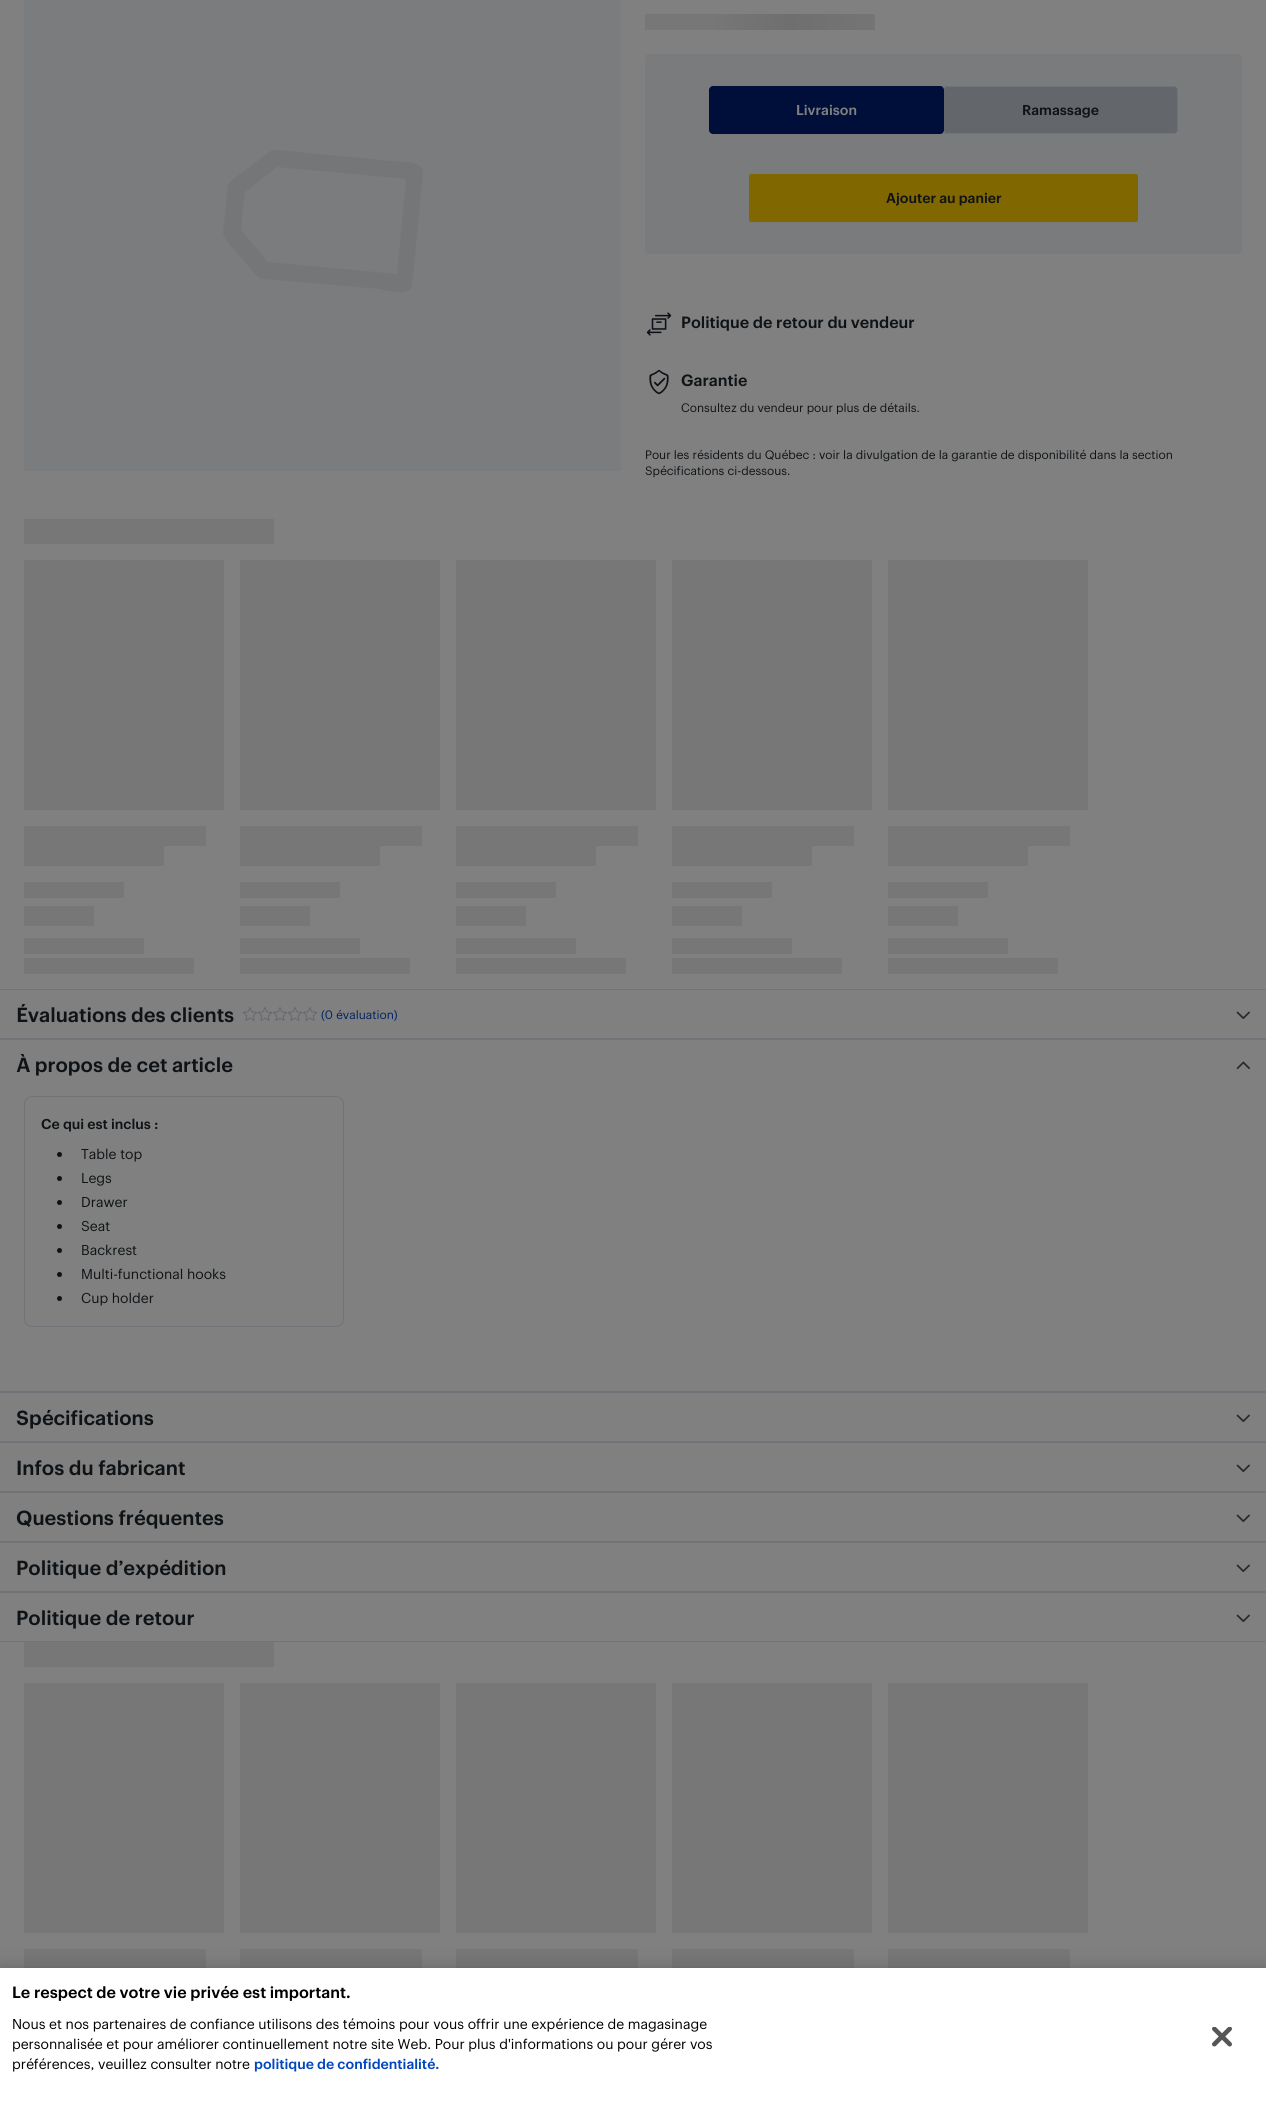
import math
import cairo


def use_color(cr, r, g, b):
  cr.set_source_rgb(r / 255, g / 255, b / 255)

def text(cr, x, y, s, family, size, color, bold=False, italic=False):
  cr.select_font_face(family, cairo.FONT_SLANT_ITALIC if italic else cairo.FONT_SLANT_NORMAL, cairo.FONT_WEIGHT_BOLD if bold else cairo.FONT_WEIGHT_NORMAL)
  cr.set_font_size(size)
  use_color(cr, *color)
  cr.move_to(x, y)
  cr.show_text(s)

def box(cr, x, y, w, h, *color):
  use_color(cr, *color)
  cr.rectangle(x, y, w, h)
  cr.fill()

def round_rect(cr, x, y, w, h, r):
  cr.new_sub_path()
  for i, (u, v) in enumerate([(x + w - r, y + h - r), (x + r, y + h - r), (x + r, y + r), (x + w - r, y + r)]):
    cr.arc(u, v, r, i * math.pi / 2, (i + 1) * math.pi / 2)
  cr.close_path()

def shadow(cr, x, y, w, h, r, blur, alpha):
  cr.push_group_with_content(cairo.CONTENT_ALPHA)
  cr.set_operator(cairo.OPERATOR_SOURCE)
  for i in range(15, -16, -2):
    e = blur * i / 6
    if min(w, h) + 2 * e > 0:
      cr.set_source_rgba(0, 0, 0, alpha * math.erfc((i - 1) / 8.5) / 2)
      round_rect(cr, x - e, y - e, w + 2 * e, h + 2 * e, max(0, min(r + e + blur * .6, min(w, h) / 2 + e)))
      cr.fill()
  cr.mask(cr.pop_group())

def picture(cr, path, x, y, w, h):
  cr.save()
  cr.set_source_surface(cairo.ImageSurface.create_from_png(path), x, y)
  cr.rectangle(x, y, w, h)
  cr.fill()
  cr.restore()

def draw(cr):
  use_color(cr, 128, 128, 128)
  cr.paint()
  box(cr, 24, 0, 597, 471, 123, 124, 125)
  cr.save()
  cr.rectangle(223, 150, 200, 142)
  cr.clip()
  use_color(cr, 117, 118, 119)
  cr.new_path()
  cr.move_to(423, 173)
  cr.curve_to(424, 159, 396, 162, 392, 161)
  cr.line_to(298, 152)
  cr.curve_to(266, 149, 277, 146, 250, 167)
  cr.line_to(237, 176)
  cr.curve_to(234, 178, 230, 181, 228, 185)
  cr.line_to(223, 232)
  cr.curve_to(223, 237, 227, 241, 230, 245)
  cr.line_to(251, 269)
  cr.curve_to(254, 273, 257, 278, 262, 279)
  cr.line_to(380, 289)
  cr.curve_to(383, 290, 409, 297, 412, 286)
  cr.close_path()
  cr.move_to(406, 179)
  cr.line_to(397, 274)
  cr.line_to(268, 262)
  cr.line_to(241, 230)
  cr.line_to(245, 192)
  cr.line_to(277, 167)
  cr.close_path()
  cr.fill()
  cr.restore()
  gradient = cairo.LinearGradient(645, 66, 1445, 66)
  gradient.add_color_stop_rgba(0.08, 0.467, 0.467, 0.467, 1)
  gradient.add_color_stop_rgba(0.18, 0.435, 0.435, 0.435, 1)
  gradient.add_color_stop_rgba(0.33, 0.467, 0.467, 0.467, 1)
  cr.set_source(gradient)
  cr.rectangle(645, 14, 230, 16)
  cr.fill()
  use_color(cr, 122, 123, 125)
  round_rect(cr, 645, 54, 597, 200, 4)
  cr.fill()
  box(cr, 709, 86, 469, 48, 128, 128, 128)
  use_color(cr, 99, 102, 107)
  round_rect(cr, 944, 86, 234, 48, 4)
  cr.fill()
  round_rect(cr, 709.5, 86.5, 468, 47, 3.5)
  use_color(cr, 112, 115, 120)
  cr.set_line_width(1)
  cr.stroke()
  use_color(cr, 0, 15, 58)
  round_rect(cr, 709, 86, 235, 48, 4)
  cr.fill()
  use_color(cr, 128, 103, 0)
  round_rect(cr, 749, 174, 389, 48, 2)
  cr.fill()
  picture(cr, "img_01.png", 646, 312, 26, 24)
  picture(cr, "img_02.png", 649, 369, 20, 26)
  gradient = cairo.LinearGradient(-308, 571, 492, 571)
  gradient.add_color_stop_rgba(0.08, 0.467, 0.467, 0.467, 1)
  gradient.add_color_stop_rgba(0.18, 0.435, 0.435, 0.435, 1)
  gradient.add_color_stop_rgba(0.33, 0.467, 0.467, 0.467, 1)
  cr.set_source(gradient)
  cr.rectangle(24, 519, 250, 25)
  cr.fill()
  gradient = cairo.LinearGradient(-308, 612, 492, 612)
  gradient.add_color_stop_rgba(0.08, 0.467, 0.467, 0.467, 1)
  gradient.add_color_stop_rgba(0.18, 0.435, 0.435, 0.435, 1)
  gradient.add_color_stop_rgba(0.33, 0.467, 0.467, 0.467, 1)
  cr.set_source(gradient)
  cr.rectangle(24, 560, 200, 250)
  cr.fill()
  gradient = cairo.LinearGradient(-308, 878, 492, 878)
  gradient.add_color_stop_rgba(0.08, 0.467, 0.467, 0.467, 1)
  gradient.add_color_stop_rgba(0.18, 0.435, 0.435, 0.435, 1)
  gradient.add_color_stop_rgba(0.33, 0.467, 0.467, 0.467, 1)
  cr.set_source(gradient)
  cr.rectangle(24, 826, 182, 20)
  cr.fill()
  gradient = cairo.LinearGradient(-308, 898, 492, 898)
  gradient.add_color_stop_rgba(0.08, 0.467, 0.467, 0.467, 1)
  gradient.add_color_stop_rgba(0.18, 0.435, 0.435, 0.435, 1)
  gradient.add_color_stop_rgba(0.33, 0.467, 0.467, 0.467, 1)
  cr.set_source(gradient)
  cr.rectangle(24, 846, 140, 20)
  cr.fill()
  gradient = cairo.LinearGradient(-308, 934, 492, 934)
  gradient.add_color_stop_rgba(0.08, 0.467, 0.467, 0.467, 1)
  gradient.add_color_stop_rgba(0.18, 0.435, 0.435, 0.435, 1)
  gradient.add_color_stop_rgba(0.33, 0.467, 0.467, 0.467, 1)
  cr.set_source(gradient)
  cr.rectangle(24, 882, 100, 16)
  cr.fill()
  gradient = cairo.LinearGradient(-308, 958, 492, 958)
  gradient.add_color_stop_rgba(0.08, 0.467, 0.467, 0.467, 1)
  gradient.add_color_stop_rgba(0.18, 0.435, 0.435, 0.435, 1)
  gradient.add_color_stop_rgba(0.33, 0.467, 0.467, 0.467, 1)
  cr.set_source(gradient)
  cr.rectangle(24, 906, 70, 20)
  cr.fill()
  gradient = cairo.LinearGradient(-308, 990, 492, 990)
  gradient.add_color_stop_rgba(0.08, 0.467, 0.467, 0.467, 1)
  gradient.add_color_stop_rgba(0.18, 0.435, 0.435, 0.435, 1)
  gradient.add_color_stop_rgba(0.33, 0.467, 0.467, 0.467, 1)
  cr.set_source(gradient)
  cr.rectangle(24, 938, 120, 16)
  cr.fill()
  gradient = cairo.LinearGradient(-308, 1010, 492, 1010)
  gradient.add_color_stop_rgba(0.08, 0.467, 0.467, 0.467, 1)
  gradient.add_color_stop_rgba(0.18, 0.435, 0.435, 0.435, 1)
  gradient.add_color_stop_rgba(0.33, 0.467, 0.467, 0.467, 1)
  cr.set_source(gradient)
  cr.rectangle(24, 958, 170, 16)
  cr.fill()
  gradient = cairo.LinearGradient(-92, 612, 708, 612)
  gradient.add_color_stop_rgba(0.08, 0.467, 0.467, 0.467, 1)
  gradient.add_color_stop_rgba(0.18, 0.435, 0.435, 0.435, 1)
  gradient.add_color_stop_rgba(0.33, 0.467, 0.467, 0.467, 1)
  cr.set_source(gradient)
  cr.rectangle(240, 560, 200, 250)
  cr.fill()
  gradient = cairo.LinearGradient(-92, 878, 708, 878)
  gradient.add_color_stop_rgba(0.08, 0.467, 0.467, 0.467, 1)
  gradient.add_color_stop_rgba(0.18, 0.435, 0.435, 0.435, 1)
  gradient.add_color_stop_rgba(0.33, 0.467, 0.467, 0.467, 1)
  cr.set_source(gradient)
  cr.rectangle(240, 826, 182, 20)
  cr.fill()
  gradient = cairo.LinearGradient(-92, 898, 708, 898)
  gradient.add_color_stop_rgba(0.08, 0.467, 0.467, 0.467, 1)
  gradient.add_color_stop_rgba(0.18, 0.435, 0.435, 0.435, 1)
  gradient.add_color_stop_rgba(0.33, 0.467, 0.467, 0.467, 1)
  cr.set_source(gradient)
  cr.rectangle(240, 846, 140, 20)
  cr.fill()
  gradient = cairo.LinearGradient(-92, 934, 708, 934)
  gradient.add_color_stop_rgba(0.08, 0.467, 0.467, 0.467, 1)
  gradient.add_color_stop_rgba(0.18, 0.435, 0.435, 0.435, 1)
  gradient.add_color_stop_rgba(0.33, 0.467, 0.467, 0.467, 1)
  cr.set_source(gradient)
  cr.rectangle(240, 882, 100, 16)
  cr.fill()
  gradient = cairo.LinearGradient(-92, 958, 708, 958)
  gradient.add_color_stop_rgba(0.08, 0.467, 0.467, 0.467, 1)
  gradient.add_color_stop_rgba(0.18, 0.435, 0.435, 0.435, 1)
  gradient.add_color_stop_rgba(0.33, 0.467, 0.467, 0.467, 1)
  cr.set_source(gradient)
  cr.rectangle(240, 906, 70, 20)
  cr.fill()
  gradient = cairo.LinearGradient(-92, 990, 708, 990)
  gradient.add_color_stop_rgba(0.08, 0.467, 0.467, 0.467, 1)
  gradient.add_color_stop_rgba(0.18, 0.435, 0.435, 0.435, 1)
  gradient.add_color_stop_rgba(0.33, 0.467, 0.467, 0.467, 1)
  cr.set_source(gradient)
  cr.rectangle(240, 938, 120, 16)
  cr.fill()
  gradient = cairo.LinearGradient(-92, 1010, 708, 1010)
  gradient.add_color_stop_rgba(0.08, 0.467, 0.467, 0.467, 1)
  gradient.add_color_stop_rgba(0.18, 0.435, 0.435, 0.435, 1)
  gradient.add_color_stop_rgba(0.33, 0.467, 0.467, 0.467, 1)
  cr.set_source(gradient)
  cr.rectangle(240, 958, 170, 16)
  cr.fill()
  gradient = cairo.LinearGradient(124, 612, 924, 612)
  gradient.add_color_stop_rgba(0.08, 0.467, 0.467, 0.467, 1)
  gradient.add_color_stop_rgba(0.18, 0.435, 0.435, 0.435, 1)
  gradient.add_color_stop_rgba(0.33, 0.467, 0.467, 0.467, 1)
  cr.set_source(gradient)
  cr.rectangle(456, 560, 200, 250)
  cr.fill()
  gradient = cairo.LinearGradient(124, 878, 924, 878)
  gradient.add_color_stop_rgba(0.08, 0.467, 0.467, 0.467, 1)
  gradient.add_color_stop_rgba(0.18, 0.435, 0.435, 0.435, 1)
  gradient.add_color_stop_rgba(0.33, 0.467, 0.467, 0.467, 1)
  cr.set_source(gradient)
  cr.rectangle(456, 826, 182, 20)
  cr.fill()
  gradient = cairo.LinearGradient(124, 898, 924, 898)
  gradient.add_color_stop_rgba(0.08, 0.467, 0.467, 0.467, 1)
  gradient.add_color_stop_rgba(0.18, 0.435, 0.435, 0.435, 1)
  gradient.add_color_stop_rgba(0.33, 0.467, 0.467, 0.467, 1)
  cr.set_source(gradient)
  cr.rectangle(456, 846, 140, 20)
  cr.fill()
  gradient = cairo.LinearGradient(124, 934, 924, 934)
  gradient.add_color_stop_rgba(0.08, 0.467, 0.467, 0.467, 1)
  gradient.add_color_stop_rgba(0.18, 0.435, 0.435, 0.435, 1)
  gradient.add_color_stop_rgba(0.33, 0.467, 0.467, 0.467, 1)
  cr.set_source(gradient)
  cr.rectangle(456, 882, 100, 16)
  cr.fill()
  gradient = cairo.LinearGradient(124, 958, 924, 958)
  gradient.add_color_stop_rgba(0.08, 0.467, 0.467, 0.467, 1)
  gradient.add_color_stop_rgba(0.18, 0.435, 0.435, 0.435, 1)
  gradient.add_color_stop_rgba(0.33, 0.467, 0.467, 0.467, 1)
  cr.set_source(gradient)
  cr.rectangle(456, 906, 70, 20)
  cr.fill()
  gradient = cairo.LinearGradient(124, 990, 924, 990)
  gradient.add_color_stop_rgba(0.08, 0.467, 0.467, 0.467, 1)
  gradient.add_color_stop_rgba(0.18, 0.435, 0.435, 0.435, 1)
  gradient.add_color_stop_rgba(0.33, 0.467, 0.467, 0.467, 1)
  cr.set_source(gradient)
  cr.rectangle(456, 938, 120, 16)
  cr.fill()
  gradient = cairo.LinearGradient(124, 1010, 924, 1010)
  gradient.add_color_stop_rgba(0.08, 0.467, 0.467, 0.467, 1)
  gradient.add_color_stop_rgba(0.18, 0.435, 0.435, 0.435, 1)
  gradient.add_color_stop_rgba(0.33, 0.467, 0.467, 0.467, 1)
  cr.set_source(gradient)
  cr.rectangle(456, 958, 170, 16)
  cr.fill()
  gradient = cairo.LinearGradient(340, 612, 1140, 612)
  gradient.add_color_stop_rgba(0.08, 0.467, 0.467, 0.467, 1)
  gradient.add_color_stop_rgba(0.18, 0.435, 0.435, 0.435, 1)
  gradient.add_color_stop_rgba(0.33, 0.467, 0.467, 0.467, 1)
  cr.set_source(gradient)
  cr.rectangle(672, 560, 200, 250)
  cr.fill()
  gradient = cairo.LinearGradient(340, 878, 1140, 878)
  gradient.add_color_stop_rgba(0.08, 0.467, 0.467, 0.467, 1)
  gradient.add_color_stop_rgba(0.18, 0.435, 0.435, 0.435, 1)
  gradient.add_color_stop_rgba(0.33, 0.467, 0.467, 0.467, 1)
  cr.set_source(gradient)
  cr.rectangle(672, 826, 182, 20)
  cr.fill()
  gradient = cairo.LinearGradient(340, 898, 1140, 898)
  gradient.add_color_stop_rgba(0.08, 0.467, 0.467, 0.467, 1)
  gradient.add_color_stop_rgba(0.18, 0.435, 0.435, 0.435, 1)
  gradient.add_color_stop_rgba(0.33, 0.467, 0.467, 0.467, 1)
  cr.set_source(gradient)
  cr.rectangle(672, 846, 140, 20)
  cr.fill()
  gradient = cairo.LinearGradient(340, 934, 1140, 934)
  gradient.add_color_stop_rgba(0.08, 0.467, 0.467, 0.467, 1)
  gradient.add_color_stop_rgba(0.18, 0.435, 0.435, 0.435, 1)
  gradient.add_color_stop_rgba(0.33, 0.467, 0.467, 0.467, 1)
  cr.set_source(gradient)
  cr.rectangle(672, 882, 100, 16)
  cr.fill()
  gradient = cairo.LinearGradient(340, 958, 1140, 958)
  gradient.add_color_stop_rgba(0.08, 0.467, 0.467, 0.467, 1)
  gradient.add_color_stop_rgba(0.18, 0.435, 0.435, 0.435, 1)
  gradient.add_color_stop_rgba(0.33, 0.467, 0.467, 0.467, 1)
  cr.set_source(gradient)
  cr.rectangle(672, 906, 70, 20)
  cr.fill()
  gradient = cairo.LinearGradient(340, 990, 1140, 990)
  gradient.add_color_stop_rgba(0.08, 0.467, 0.467, 0.467, 1)
  gradient.add_color_stop_rgba(0.18, 0.435, 0.435, 0.435, 1)
  gradient.add_color_stop_rgba(0.33, 0.467, 0.467, 0.467, 1)
  cr.set_source(gradient)
  cr.rectangle(672, 938, 120, 16)
  cr.fill()
  gradient = cairo.LinearGradient(340, 1010, 1140, 1010)
  gradient.add_color_stop_rgba(0.08, 0.467, 0.467, 0.467, 1)
  gradient.add_color_stop_rgba(0.18, 0.435, 0.435, 0.435, 1)
  gradient.add_color_stop_rgba(0.33, 0.467, 0.467, 0.467, 1)
  cr.set_source(gradient)
  cr.rectangle(672, 958, 170, 16)
  cr.fill()
  gradient = cairo.LinearGradient(556, 612, 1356, 612)
  gradient.add_color_stop_rgba(0.08, 0.467, 0.467, 0.467, 1)
  gradient.add_color_stop_rgba(0.18, 0.435, 0.435, 0.435, 1)
  gradient.add_color_stop_rgba(0.33, 0.467, 0.467, 0.467, 1)
  cr.set_source(gradient)
  cr.rectangle(888, 560, 200, 250)
  cr.fill()
  gradient = cairo.LinearGradient(556, 878, 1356, 878)
  gradient.add_color_stop_rgba(0.08, 0.467, 0.467, 0.467, 1)
  gradient.add_color_stop_rgba(0.18, 0.435, 0.435, 0.435, 1)
  gradient.add_color_stop_rgba(0.33, 0.467, 0.467, 0.467, 1)
  cr.set_source(gradient)
  cr.rectangle(888, 826, 182, 20)
  cr.fill()
  gradient = cairo.LinearGradient(556, 898, 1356, 898)
  gradient.add_color_stop_rgba(0.08, 0.467, 0.467, 0.467, 1)
  gradient.add_color_stop_rgba(0.18, 0.435, 0.435, 0.435, 1)
  gradient.add_color_stop_rgba(0.33, 0.467, 0.467, 0.467, 1)
  cr.set_source(gradient)
  cr.rectangle(888, 846, 140, 20)
  cr.fill()
  gradient = cairo.LinearGradient(556, 934, 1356, 934)
  gradient.add_color_stop_rgba(0.08, 0.467, 0.467, 0.467, 1)
  gradient.add_color_stop_rgba(0.18, 0.435, 0.435, 0.435, 1)
  gradient.add_color_stop_rgba(0.33, 0.467, 0.467, 0.467, 1)
  cr.set_source(gradient)
  cr.rectangle(888, 882, 100, 16)
  cr.fill()
  gradient = cairo.LinearGradient(556, 958, 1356, 958)
  gradient.add_color_stop_rgba(0.08, 0.467, 0.467, 0.467, 1)
  gradient.add_color_stop_rgba(0.18, 0.435, 0.435, 0.435, 1)
  gradient.add_color_stop_rgba(0.33, 0.467, 0.467, 0.467, 1)
  cr.set_source(gradient)
  cr.rectangle(888, 906, 70, 20)
  cr.fill()
  gradient = cairo.LinearGradient(556, 990, 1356, 990)
  gradient.add_color_stop_rgba(0.08, 0.467, 0.467, 0.467, 1)
  gradient.add_color_stop_rgba(0.18, 0.435, 0.435, 0.435, 1)
  gradient.add_color_stop_rgba(0.33, 0.467, 0.467, 0.467, 1)
  cr.set_source(gradient)
  cr.rectangle(888, 938, 120, 16)
  cr.fill()
  gradient = cairo.LinearGradient(556, 1010, 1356, 1010)
  gradient.add_color_stop_rgba(0.08, 0.467, 0.467, 0.467, 1)
  gradient.add_color_stop_rgba(0.18, 0.435, 0.435, 0.435, 1)
  gradient.add_color_stop_rgba(0.33, 0.467, 0.467, 0.467, 1)
  cr.set_source(gradient)
  cr.rectangle(888, 958, 170, 16)
  cr.fill()
  box(cr, 0, 989, 1266, 1, 112, 115, 120)
  box(cr, 0, 1038, 1266, 2, 112, 115, 120)
  picture(cr, "img_03.png", 242, 1007, 16, 14)
  picture(cr, "img_04.png", 257, 1007, 16, 14)
  picture(cr, "img_04.png", 272, 1007, 16, 14)
  picture(cr, "img_04.png", 287, 1007, 16, 14)
  picture(cr, "img_04.png", 302, 1007, 16, 14)
  picture(cr, "img_05.png", 1236, 1011, 14, 8)
  box(cr, 0, 1391, 1266, 2, 112, 115, 120)
  picture(cr, "img_06.png", 1236, 1061, 14, 8)
  round_rect(cr, 24.5, 1096.5, 319, 230, 7.5)
  cr.stroke()
  use_color(cr, 15, 19, 22)
  cr.arc(59.5, 1154.5, 2.5, 0, 2 * math.pi)
  cr.fill()
  cr.arc(59.5, 1178.5, 2.5, 0, 2 * math.pi)
  cr.fill()
  cr.arc(59.5, 1202.5, 2.5, 0, 2 * math.pi)
  cr.fill()
  cr.arc(59.5, 1226.5, 2.5, 0, 2 * math.pi)
  cr.fill()
  cr.arc(59.5, 1250.5, 2.5, 0, 2 * math.pi)
  cr.fill()
  cr.arc(59.5, 1274.5, 2.5, 0, 2 * math.pi)
  cr.fill()
  cr.arc(59.5, 1298.5, 2.5, 0, 2 * math.pi)
  cr.fill()
  box(cr, 0, 1441, 1266, 2, 112, 115, 120)
  picture(cr, "img_05.png", 1236, 1414, 14, 8)
  box(cr, 0, 1491, 1266, 2, 112, 115, 120)
  picture(cr, "img_05.png", 1236, 1464, 14, 8)
  box(cr, 0, 1541, 1266, 2, 112, 115, 120)
  picture(cr, "img_05.png", 1236, 1514, 14, 8)
  box(cr, 0, 1591, 1266, 2, 112, 115, 120)
  picture(cr, "img_05.png", 1236, 1564, 14, 8)
  box(cr, 0, 1641, 1266, 1, 112, 115, 120)
  picture(cr, "img_05.png", 1236, 1614, 14, 8)
  gradient = cairo.LinearGradient(-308, 1694, 492, 1694)
  gradient.add_color_stop_rgba(0.08, 0.467, 0.467, 0.467, 1)
  gradient.add_color_stop_rgba(0.18, 0.435, 0.435, 0.435, 1)
  gradient.add_color_stop_rgba(0.33, 0.467, 0.467, 0.467, 1)
  cr.set_source(gradient)
  cr.rectangle(24, 1642, 250, 25)
  cr.fill()
  gradient = cairo.LinearGradient(-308, 1735, 492, 1735)
  gradient.add_color_stop_rgba(0.08, 0.467, 0.467, 0.467, 1)
  gradient.add_color_stop_rgba(0.18, 0.435, 0.435, 0.435, 1)
  gradient.add_color_stop_rgba(0.33, 0.467, 0.467, 0.467, 1)
  cr.set_source(gradient)
  cr.rectangle(24, 1683, 200, 250)
  cr.fill()
  gradient = cairo.LinearGradient(-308, 2001, 492, 2001)
  gradient.add_color_stop_rgba(0.08, 0.467, 0.467, 0.467, 1)
  gradient.add_color_stop_rgba(0.18, 0.435, 0.435, 0.435, 1)
  gradient.add_color_stop_rgba(0.33, 0.467, 0.467, 0.467, 1)
  cr.set_source(gradient)
  cr.rectangle(24, 1949, 182, 19)
  cr.fill()
  gradient = cairo.LinearGradient(-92, 1735, 708, 1735)
  gradient.add_color_stop_rgba(0.08, 0.467, 0.467, 0.467, 1)
  gradient.add_color_stop_rgba(0.18, 0.435, 0.435, 0.435, 1)
  gradient.add_color_stop_rgba(0.33, 0.467, 0.467, 0.467, 1)
  cr.set_source(gradient)
  cr.rectangle(240, 1683, 200, 250)
  cr.fill()
  gradient = cairo.LinearGradient(-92, 2001, 708, 2001)
  gradient.add_color_stop_rgba(0.08, 0.467, 0.467, 0.467, 1)
  gradient.add_color_stop_rgba(0.18, 0.435, 0.435, 0.435, 1)
  gradient.add_color_stop_rgba(0.33, 0.467, 0.467, 0.467, 1)
  cr.set_source(gradient)
  cr.rectangle(240, 1949, 182, 19)
  cr.fill()
  gradient = cairo.LinearGradient(124, 1735, 924, 1735)
  gradient.add_color_stop_rgba(0.08, 0.467, 0.467, 0.467, 1)
  gradient.add_color_stop_rgba(0.18, 0.435, 0.435, 0.435, 1)
  gradient.add_color_stop_rgba(0.33, 0.467, 0.467, 0.467, 1)
  cr.set_source(gradient)
  cr.rectangle(456, 1683, 200, 250)
  cr.fill()
  gradient = cairo.LinearGradient(124, 2001, 924, 2001)
  gradient.add_color_stop_rgba(0.08, 0.467, 0.467, 0.467, 1)
  gradient.add_color_stop_rgba(0.18, 0.435, 0.435, 0.435, 1)
  gradient.add_color_stop_rgba(0.33, 0.467, 0.467, 0.467, 1)
  cr.set_source(gradient)
  cr.rectangle(456, 1949, 182, 19)
  cr.fill()
  gradient = cairo.LinearGradient(340, 1735, 1140, 1735)
  gradient.add_color_stop_rgba(0.08, 0.467, 0.467, 0.467, 1)
  gradient.add_color_stop_rgba(0.18, 0.435, 0.435, 0.435, 1)
  gradient.add_color_stop_rgba(0.33, 0.467, 0.467, 0.467, 1)
  cr.set_source(gradient)
  cr.rectangle(672, 1683, 200, 250)
  cr.fill()
  gradient = cairo.LinearGradient(340, 2001, 1140, 2001)
  gradient.add_color_stop_rgba(0.08, 0.467, 0.467, 0.467, 1)
  gradient.add_color_stop_rgba(0.18, 0.435, 0.435, 0.435, 1)
  gradient.add_color_stop_rgba(0.33, 0.467, 0.467, 0.467, 1)
  cr.set_source(gradient)
  cr.rectangle(672, 1949, 182, 19)
  cr.fill()
  gradient = cairo.LinearGradient(556, 1735, 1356, 1735)
  gradient.add_color_stop_rgba(0.08, 0.467, 0.467, 0.467, 1)
  gradient.add_color_stop_rgba(0.18, 0.435, 0.435, 0.435, 1)
  gradient.add_color_stop_rgba(0.33, 0.467, 0.467, 0.467, 1)
  cr.set_source(gradient)
  cr.rectangle(888, 1683, 200, 250)
  cr.fill()
  gradient = cairo.LinearGradient(556, 2001, 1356, 2001)
  gradient.add_color_stop_rgba(0.08, 0.467, 0.467, 0.467, 1)
  gradient.add_color_stop_rgba(0.18, 0.435, 0.435, 0.435, 1)
  gradient.add_color_stop_rgba(0.33, 0.467, 0.467, 0.467, 1)
  cr.set_source(gradient)
  cr.rectangle(888, 1949, 182, 19)
  cr.fill()
  use_color(cr, 0, 0, 0)
  shadow(cr, 0, 1968, 1266, 140, 0, 9, 0.2)
  box(cr, 0, 1968, 1266, 140, 255, 255, 255)
  picture(cr, "img_07.png", 1212, 2027, 20, 20)
  text(cr, 796, 115, "Livraison", "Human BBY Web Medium", 14, (128, 128, 128))
  text(cr, 1022, 115, "Ramassage", "Human BBY Web Medium", 14, (15, 19, 22))
  text(cr, 886, 203, "Ajouter au panier", "Human BBY Web Medium", 14, (15, 19, 22))
  text(cr, 681, 328, "Politique de retour du vendeur", "Human BBY Web Medium", 16, (15, 19, 22))
  text(cr, 681, 386, "Garantie", "Human BBY Web Medium", 16, (15, 19, 22))
  text(cr, 681, 412, "Consultez du vendeur pour plus de détails.", "Human BBY Web", 12, (15, 19, 22))
  text(cr, 645, 459, "Pour les résidents du Québec : voir la divulgation de la garantie de disponibilité dans la section", "Human BBY Web", 12, (15, 19, 22))
  text(cr, 645, 475, "Spécifications ci-dessous.", "Human BBY Web", 12, (15, 19, 22))
  text(cr, 16, 1022, "Évaluations des clients", "Human BBY Web Medium", 20, (15, 19, 22))
  text(cr, 321, 1019, "(0 évaluation)", "Human BBY Web", 12, (0, 35, 95))
  text(cr, 16, 1072, "À propos de cet article", "Human BBY Web Medium", 20, (15, 19, 22))
  text(cr, 41, 1129, "Ce qui est inclus :", "Human BBY Web Medium", 14, (15, 19, 22))
  text(cr, 81, 1159, "Table top", "Human BBY Web", 14, (15, 19, 22))
  text(cr, 81, 1183, "Legs", "Human BBY Web", 14, (15, 19, 22))
  text(cr, 81, 1207, "Drawer", "Human BBY Web", 14, (15, 19, 22))
  text(cr, 81, 1231, "Seat", "Human BBY Web", 14, (15, 19, 22))
  text(cr, 81, 1255, "Backrest", "Human BBY Web", 14, (15, 19, 22))
  text(cr, 81, 1279, "Multi-functional hooks", "Human BBY Web", 14, (15, 19, 22))
  text(cr, 81, 1303, "Cup holder", "Human BBY Web", 14, (15, 19, 22))
  text(cr, 16, 1425, "Spécifications", "Human BBY Web Medium", 20, (15, 19, 22))
  text(cr, 16, 1475, "Infos du fabricant", "Human BBY Web Medium", 20, (15, 19, 22))
  text(cr, 16, 1525, "Questions fréquentes", "Human BBY Web Medium", 20, (15, 19, 22))
  text(cr, 16, 1575, "Politique d’expédition", "Human BBY Web Medium", 20, (15, 19, 22))
  text(cr, 16, 1625, "Politique de retour", "Human BBY Web Medium", 20, (15, 19, 22))
  text(cr, 12, 1998, "Le respect de votre vie privée est important.", "Human BBY Web Medium", 16, (0, 0, 0))
  text(cr, 12, 2029, "Nous et nos partenaires de confiance utilisons des témoins pour vous offrir une expérience de magasinage", "Human BBY Web", 14, (0, 0, 0))
  text(cr, 12, 2049, "personnalisée et pour améliorer continuellement notre site Web. Pour plus d'informations ou pour gérer vos", "Human BBY Web", 14, (0, 0, 0))
  text(cr, 12, 2069, "préférences, veuillez consulter notre", "Human BBY Web", 14, (0, 0, 0))
  text(cr, 254, 2069, "politique de confidentialité.", "Human BBY Web Medium", 14, (0, 70, 190))


surface = cairo.ImageSurface(cairo.FORMAT_RGB24, 1266, 2108)
cr = cairo.Context(surface)
options = cairo.FontOptions()
options.set_hint_metrics(cairo.HINT_METRICS_OFF)
options.set_hint_style(cairo.HINT_STYLE_NONE)
cr.set_font_options(options)
cr.set_miter_limit(4)
draw(cr)
surface.write_to_png("out.png")
